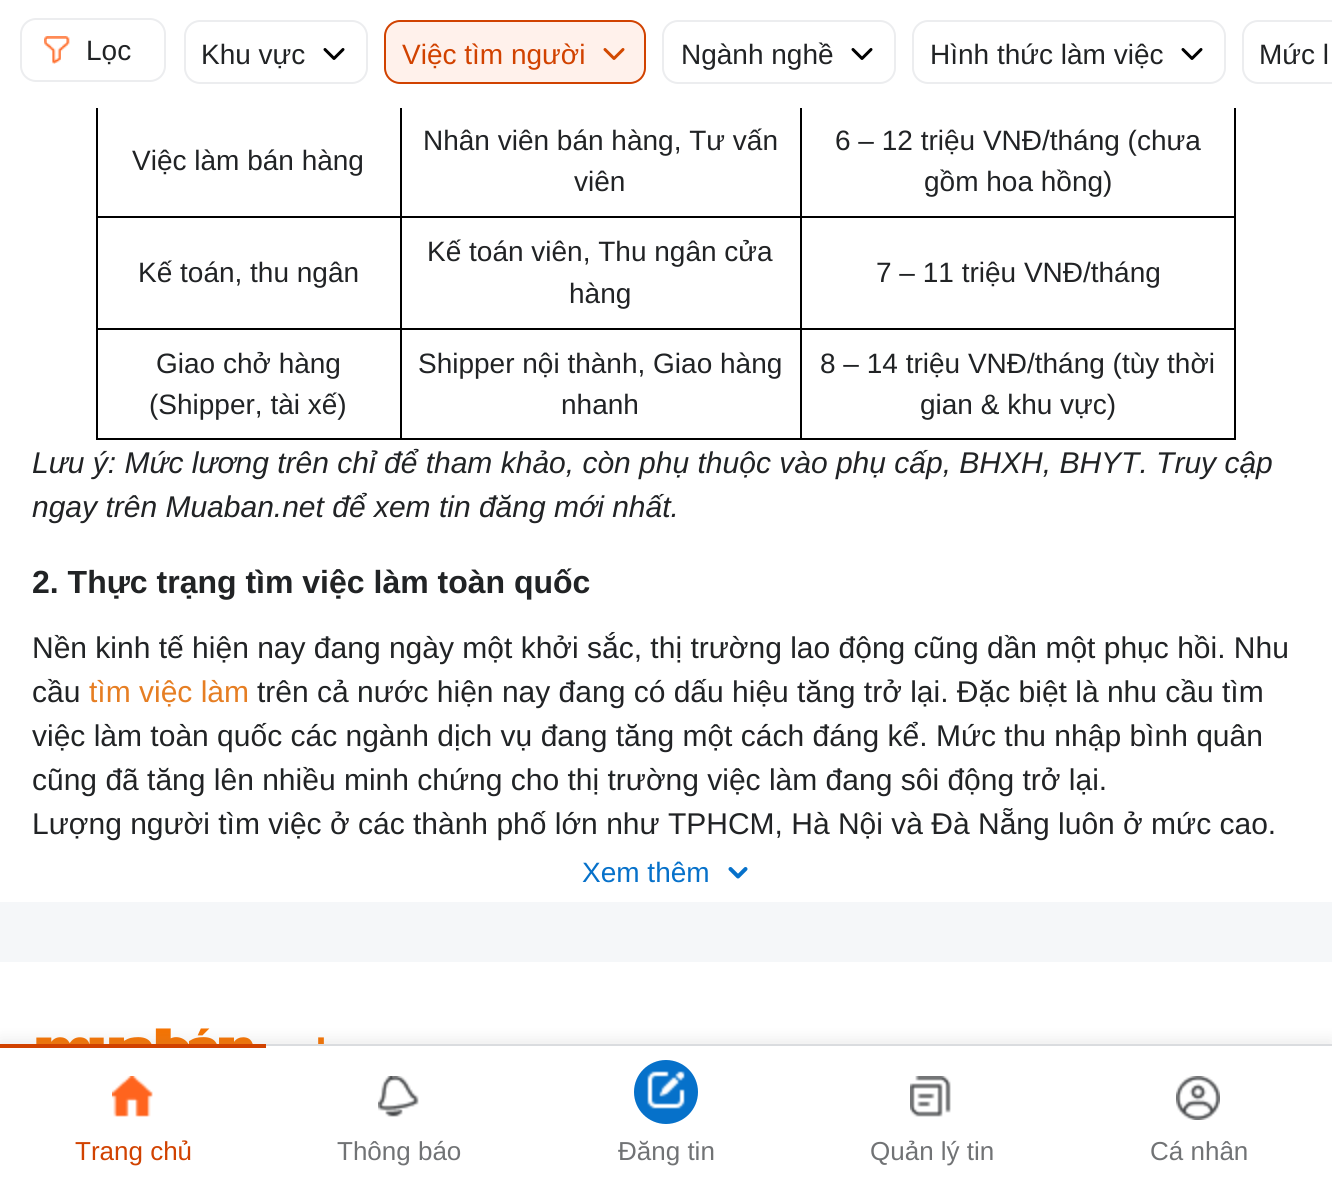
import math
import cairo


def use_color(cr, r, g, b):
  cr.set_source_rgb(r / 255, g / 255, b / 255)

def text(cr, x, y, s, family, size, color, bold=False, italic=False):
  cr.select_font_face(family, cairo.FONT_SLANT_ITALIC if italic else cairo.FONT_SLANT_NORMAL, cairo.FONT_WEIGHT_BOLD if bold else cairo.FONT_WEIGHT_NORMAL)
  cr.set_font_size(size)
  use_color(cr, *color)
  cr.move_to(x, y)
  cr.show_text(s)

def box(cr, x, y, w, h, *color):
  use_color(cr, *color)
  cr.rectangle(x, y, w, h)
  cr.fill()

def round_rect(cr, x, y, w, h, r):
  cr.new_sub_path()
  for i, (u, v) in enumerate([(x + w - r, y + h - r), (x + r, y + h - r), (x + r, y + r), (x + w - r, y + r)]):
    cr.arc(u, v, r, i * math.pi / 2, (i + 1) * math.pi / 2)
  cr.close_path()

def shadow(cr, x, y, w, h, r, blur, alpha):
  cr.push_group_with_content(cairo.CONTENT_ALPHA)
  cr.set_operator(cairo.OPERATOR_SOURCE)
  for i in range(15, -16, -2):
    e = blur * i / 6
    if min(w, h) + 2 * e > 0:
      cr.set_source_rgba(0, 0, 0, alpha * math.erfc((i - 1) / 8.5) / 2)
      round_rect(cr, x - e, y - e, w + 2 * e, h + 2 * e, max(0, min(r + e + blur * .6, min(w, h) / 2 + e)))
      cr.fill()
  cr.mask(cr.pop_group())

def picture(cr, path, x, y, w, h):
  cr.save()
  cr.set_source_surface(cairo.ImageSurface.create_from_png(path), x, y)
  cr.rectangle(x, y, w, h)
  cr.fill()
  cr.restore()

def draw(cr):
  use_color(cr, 245, 247, 249)
  cr.paint()
  box(cr, 0, 108, 1332, 794, 255, 255, 255)
  box(cr, 800, 216, 436, 2, 0, 0, 0)
  box(cr, 800, 328, 436, 2, 0, 0, 0)
  box(cr, 1234, 328, 2, 112, 0, 0, 0)
  box(cr, 800, 438, 436, 2, 0, 0, 0)
  box(cr, 800, 328, 2, 112, 0, 0, 0)
  box(cr, 400, 328, 402, 2, 0, 0, 0)
  box(cr, 800, 216, 2, 114, 0, 0, 0)
  box(cr, 400, 216, 402, 2, 0, 0, 0)
  box(cr, 400, 438, 402, 2, 0, 0, 0)
  box(cr, 400, 328, 2, 112, 0, 0, 0)
  box(cr, 96, 328, 306, 2, 0, 0, 0)
  box(cr, 400, 216, 2, 114, 0, 0, 0)
  box(cr, 96, 216, 306, 2, 0, 0, 0)
  box(cr, 400, 104, 2, 114, 0, 0, 0)
  box(cr, 800, 104, 2, 114, 0, 0, 0)
  box(cr, 96, 438, 306, 2, 0, 0, 0)
  box(cr, 96, 328, 2, 112, 0, 0, 0)
  box(cr, 96, 104, 2, 226, 0, 0, 0)
  box(cr, 1234, 104, 2, 226, 0, 0, 0)
  box(cr, 0, 0, 1332, 108, 255, 255, 255)
  round_rect(cr, 21, 19, 144, 62, 15)
  use_color(cr, 236, 237, 239)
  cr.stroke()
  picture(cr, "img_01.png", 44, 36, 26, 28)
  round_rect(cr, 185, 21, 182, 62, 15)
  cr.stroke()
  picture(cr, "img_02.png", 323, 48, 22, 12)
  use_color(cr, 255, 241, 235)
  round_rect(cr, 385, 21, 260, 62, 15)
  cr.fill_preserve()
  use_color(cr, 209, 66, 0)
  cr.stroke()
  picture(cr, "img_03.png", 603, 48, 22, 12)
  round_rect(cr, 663, 21, 232, 62, 15)
  use_color(cr, 236, 237, 239)
  cr.stroke()
  picture(cr, "img_02.png", 851, 48, 22, 12)
  round_rect(cr, 913, 21, 312, 62, 15)
  cr.stroke()
  picture(cr, "img_02.png", 1181, 48, 22, 12)
  round_rect(cr, 1243, 21, 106, 62, 15)
  cr.stroke()
  cr.new_path()
  cr.move_to(730.5, 869)
  cr.line_to(738, 876.5)
  cr.line_to(745.5, 869)
  use_color(cr, 6, 113, 202)
  cr.set_line_width(4)
  cr.set_line_cap(cairo.LINE_CAP_ROUND)
  cr.set_line_join(cairo.LINE_JOIN_ROUND)
  cr.stroke()
  box(cr, 0, 962, 1332, 82, 255, 255, 255)
  picture(cr, "img_04.png", 36, 1028, 288, 16)
  use_color(cr, 130, 130, 130)
  shadow(cr, 0, 1040, 1332, 160, 0, 8, 0.16)
  box(cr, 0, 1046, 1332, 158, 255, 255, 255)
  box(cr, 266, 1044, 1066, 2, 218, 220, 223)
  box(cr, 0, 1044, 266, 4, 209, 66, 0)
  picture(cr, "img_05.png", 112, 1076, 41, 41)
  picture(cr, "img_06.png", 378, 1076, 41, 41)
  use_color(cr, 6, 113, 202)
  cr.arc(666, 1092, 32, 0, 2 * math.pi)
  cr.fill()
  picture(cr, "img_07.png", 647, 1071, 38, 38)
  picture(cr, "img_08.png", 910, 1076, 41, 41)
  picture(cr, "img_09.png", 1176, 1076, 44, 44)
  text(cr, 86, 60, "Lọc", "Liberation Sans", 28, (33, 35, 37))
  text(cr, 201, 64, "Khu vực", "Liberation Sans", 28, (33, 35, 37))
  text(cr, 402, 64, "Việc tìm người", "Liberation Sans", 28, (209, 66, 0))
  text(cr, 681, 64, "Ngành nghề", "Liberation Sans", 28, (33, 35, 37))
  text(cr, 930, 64, "Hình thức làm việc", "Liberation Sans", 28, (33, 35, 37))
  text(cr, 1259, 64, "Mức l", "Liberation Sans", 28, (33, 35, 37))
  text(cr, 132, 170, "Việc làm bán hàng", "Liberation Sans", 28, (33, 35, 37))
  text(cr, 423, 150, "Nhân viên bán hàng, Tư vấn", "Liberation Sans", 28, (33, 35, 37))
  text(cr, 574, 191, "viên", "Liberation Sans", 28, (33, 35, 37))
  text(cr, 835, 150, "6 – 12 triệu VNĐ/tháng (chưa", "Liberation Sans", 28, (33, 35, 37))
  text(cr, 924, 191, "gồm hoa hồng)", "Liberation Sans", 28, (33, 35, 37))
  text(cr, 138, 282, "Kế toán, thu ngân", "Liberation Sans", 28, (33, 35, 37))
  text(cr, 427, 261, "Kế toán viên, Thu ngân cửa", "Liberation Sans", 28, (33, 35, 37))
  text(cr, 569, 303, "hàng", "Liberation Sans", 28, (33, 35, 37))
  text(cr, 876, 282, "7 – 11 triệu VNĐ/tháng", "Liberation Sans", 28, (33, 35, 37))
  text(cr, 156, 373, "Giao chở hàng", "Liberation Sans", 28, (33, 35, 37))
  text(cr, 149, 414, "(Shipper, tài xế)", "Liberation Sans", 28, (33, 35, 37))
  text(cr, 418, 373, "Shipper nội thành, Giao hàng", "Liberation Sans", 28, (33, 35, 37))
  text(cr, 561, 414, "nhanh", "Liberation Sans", 28, (33, 35, 37))
  text(cr, 820, 373, "8 – 14 triệu VNĐ/tháng (tùy thời", "Liberation Sans", 28, (33, 35, 37))
  text(cr, 920, 414, "gian & khu vực)", "Liberation Sans", 28, (33, 35, 37))
  text(cr, 32, 473, "Lưu ý: Mức lương trên chỉ để tham khảo, còn phụ thuộc vào phụ cấp, BHXH, BHYT. Truy cập", "Liberation Sans", 30, (33, 35, 37), italic=True)
  text(cr, 32, 517, "ngay trên Muaban.net để xem tin đăng mới nhất.", "Liberation Sans", 30, (33, 35, 37), italic=True)
  text(cr, 32, 593, "2. Thực trạng tìm việc làm toàn quốc", "Liberation Sans", 32, (33, 35, 37), bold=True)
  text(cr, 32, 658, "Nền kinh tế hiện nay đang ngày một khởi sắc, thị trường lao động cũng dần một phục hồi. Nhu", "Liberation Sans", 30, (33, 35, 37))
  text(cr, 32, 702, "cầu", "Liberation Sans", 30, (33, 35, 37))
  text(cr, 89, 702, "tìm việc làm", "Liberation Sans", 30, (230, 126, 35))
  text(cr, 257, 702, "trên cả nước hiện nay đang có dấu hiệu tăng trở lại. Đặc biệt là nhu cầu tìm", "Liberation Sans", 30, (33, 35, 37))
  text(cr, 32, 746, "việc làm toàn quốc các ngành dịch vụ đang tăng một cách đáng kể. Mức thu nhập bình quân", "Liberation Sans", 30, (33, 35, 37))
  text(cr, 32, 790, "cũng đã tăng lên nhiều minh chứng cho thị trường việc làm đang sôi động trở lại.", "Liberation Sans", 30, (33, 35, 37))
  text(cr, 32, 834, "Lượng người tìm việc ở các thành phố lớn như TPHCM, Hà Nội và Đà Nẵng luôn ở mức cao.", "Liberation Sans", 30, (33, 35, 37))
  text(cr, 582, 882, "Xem thêm", "Liberation Sans", 28, (6, 113, 202))
  text(cr, 75, 1160, "Trang chủ", "Liberation Sans", 26, (209, 66, 0))
  text(cr, 337, 1160, "Thông báo", "Liberation Sans", 26, (113, 115, 117))
  text(cr, 618, 1160, "Đăng tin", "Liberation Sans", 26, (113, 115, 117))
  text(cr, 870, 1160, "Quản lý tin", "Liberation Sans", 26, (113, 115, 117))
  text(cr, 1150, 1160, "Cá nhân", "Liberation Sans", 26, (113, 115, 117))


surface = cairo.ImageSurface(cairo.FORMAT_RGB24, 1332, 1204)
cr = cairo.Context(surface)
options = cairo.FontOptions()
options.set_hint_metrics(cairo.HINT_METRICS_OFF)
options.set_hint_style(cairo.HINT_STYLE_NONE)
cr.set_font_options(options)
cr.set_miter_limit(4)
draw(cr)
surface.write_to_png("out.png")
